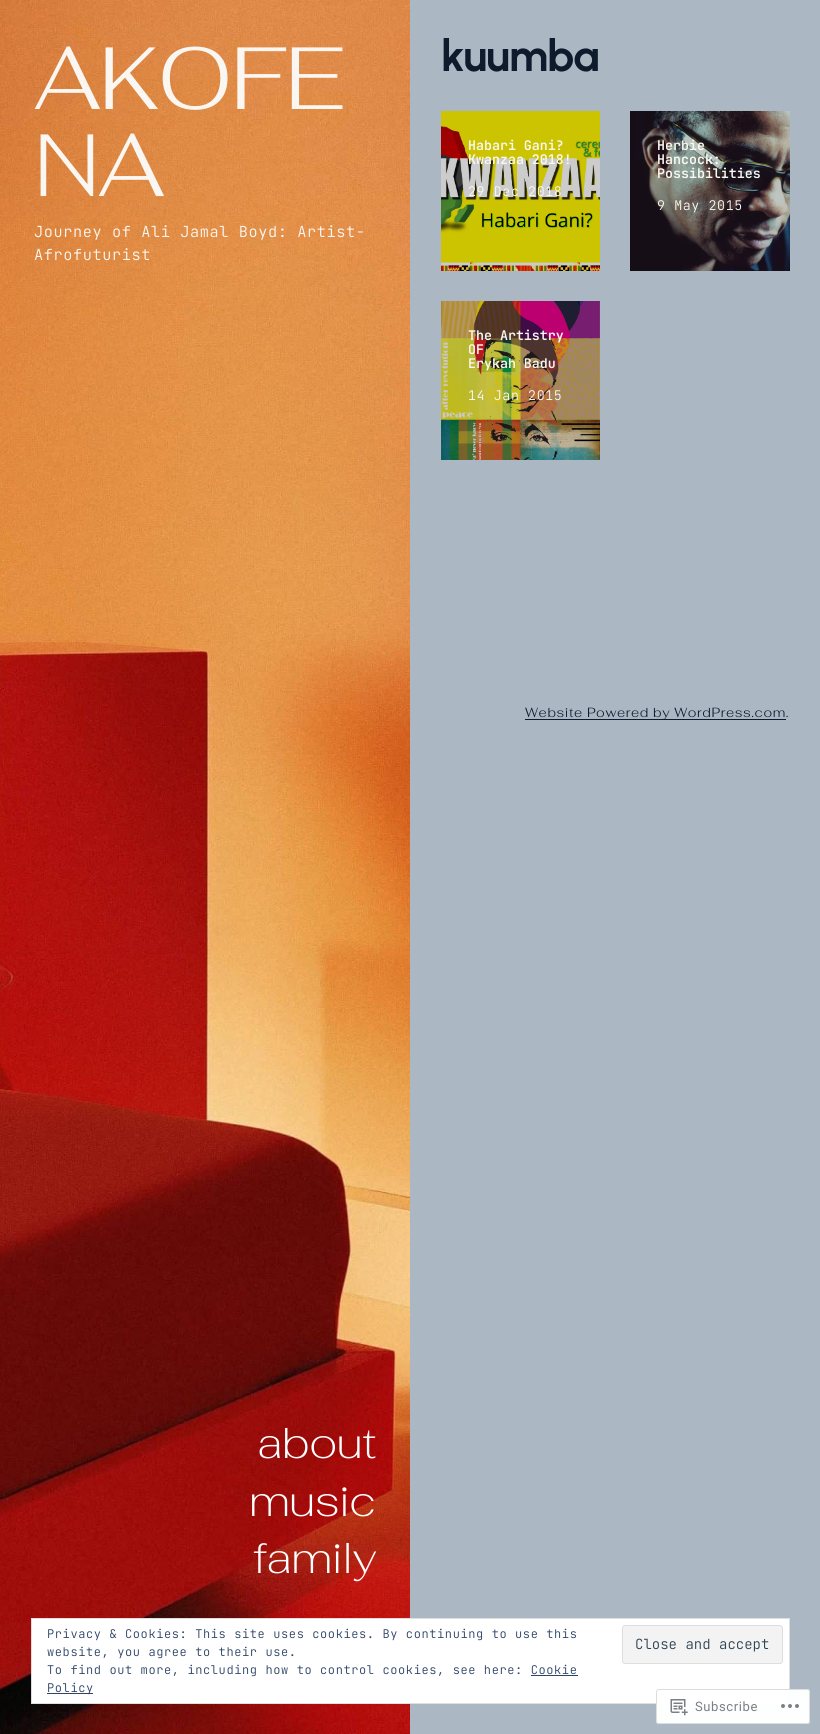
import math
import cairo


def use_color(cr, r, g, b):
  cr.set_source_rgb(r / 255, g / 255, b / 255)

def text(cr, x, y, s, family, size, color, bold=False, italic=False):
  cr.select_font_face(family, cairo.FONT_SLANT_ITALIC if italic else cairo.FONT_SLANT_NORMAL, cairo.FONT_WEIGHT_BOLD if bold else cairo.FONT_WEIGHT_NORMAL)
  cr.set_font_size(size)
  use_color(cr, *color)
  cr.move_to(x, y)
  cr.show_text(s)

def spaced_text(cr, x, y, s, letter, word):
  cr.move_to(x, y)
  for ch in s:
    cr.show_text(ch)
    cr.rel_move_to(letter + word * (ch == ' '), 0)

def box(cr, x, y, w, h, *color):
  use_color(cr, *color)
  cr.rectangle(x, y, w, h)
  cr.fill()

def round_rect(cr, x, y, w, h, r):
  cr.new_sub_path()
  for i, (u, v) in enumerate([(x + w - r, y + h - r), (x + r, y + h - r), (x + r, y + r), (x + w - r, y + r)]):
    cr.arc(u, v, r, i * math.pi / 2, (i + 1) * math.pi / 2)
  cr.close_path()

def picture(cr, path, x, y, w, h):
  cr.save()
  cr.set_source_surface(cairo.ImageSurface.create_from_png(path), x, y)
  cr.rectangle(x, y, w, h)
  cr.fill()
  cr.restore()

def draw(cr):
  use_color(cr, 171, 184, 195)
  cr.paint()
  picture(cr, "img_01.png", 0, 0, 410, 1734)
  picture(cr, "img_02.png", 441, 111, 159, 160)
  picture(cr, "img_03.png", 630, 111, 160, 160)
  picture(cr, "img_04.png", 441, 301, 159, 159)
  box(cr, 525, 719, 261, 1, 14, 27, 44)
  use_color(cr, 255, 255, 255)
  cr.rectangle(31.5, 1618.5, 758, 85)
  cr.fill_preserve()
  use_color(cr, 222, 222, 222)
  cr.set_line_width(1)
  cr.stroke()
  use_color(cr, 243, 243, 243)
  round_rect(cr, 622.5, 1625.5, 160, 38, 2.5)
  cr.fill_preserve()
  use_color(cr, 222, 222, 222)
  cr.stroke()
  box(cr, 531, 1675, 47, 1, 46, 68, 103)
  box(cr, 47, 1693, 46, 1, 46, 68, 103)
  cr.set_source_rgba(1, 1, 1, 0.98)
  round_rect(cr, 656, 1689, 154, 35, 3)
  cr.fill()
  round_rect(cr, 656.5, 1689.5, 153, 34, 2.5)
  cr.set_source_rgba(0.863, 0.863, 0.871, 0.98)
  cr.stroke()
  picture(cr, "img_05.png", 670, 1699, 18, 17)
  picture(cr, "img_06.png", 781, 1704, 18, 4)
  cr.select_font_face("Fahkwang Light")
  cr.set_font_size(88)
  use_color(cr, 250, 247, 242)
  spaced_text(cr, 34, 109, "AKOFE", -1.75, 0)
  spaced_text(cr, 34, 196, "NA", -1.75, 0)
  cr.select_font_face("JetBrains Mono Light")
  cr.set_font_size(15.25)
  spaced_text(cr, 34, 237, "Journey of Ali Jamal Boyd: Artist-", 0.6, 0)
  spaced_text(cr, 34, 260, "Afrofuturist", 0.6, 0)
  cr.select_font_face("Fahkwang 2 Light")
  cr.set_font_size(44)
  use_color(cr, 255, 255, 255)
  spaced_text(cr, 257, 1458, "about", -0.5, 0)
  spaced_text(cr, 249, 1516, "music", -0.5, 0)
  spaced_text(cr, 253, 1573, "family", -0.5, 0)
  cr.select_font_face("Urbanist", cairo.FONT_SLANT_NORMAL, cairo.FONT_WEIGHT_BOLD)
  use_color(cr, 14, 27, 44)
  spaced_text(cr, 441, 71, "kuumba", -1, 0)
  text(cr, 468, 150, "Habari Gani?", "JetBrains Mono SemiBold", 13.3, (250, 247, 242))
  text(cr, 468, 164, "Kwanzaa 2018!", "JetBrains Mono SemiBold", 13.3, (250, 247, 242))
  cr.select_font_face("JetBrains Mono Light")
  spaced_text(cr, 468, 196, "29 Dec 2018", 0.6, 0)
  text(cr, 657, 150, "Herbie", "JetBrains Mono SemiBold", 13.3, (250, 247, 242))
  text(cr, 657, 164, "Hancock:", "JetBrains Mono SemiBold", 13.3, (250, 247, 242))
  text(cr, 657, 178, "Possibilities", "JetBrains Mono SemiBold", 13.3, (250, 247, 242))
  cr.select_font_face("JetBrains Mono Light")
  spaced_text(cr, 657, 210, "9 May 2015", 0.6, 0)
  text(cr, 468, 340, "The Artistry", "JetBrains Mono SemiBold", 13.3, (250, 247, 242))
  text(cr, 468, 354, "OF", "JetBrains Mono SemiBold", 13.3, (250, 247, 242))
  text(cr, 468, 368, "Erykah Badu", "JetBrains Mono SemiBold", 13.3, (250, 247, 242))
  cr.select_font_face("JetBrains Mono Light")
  spaced_text(cr, 468, 400, "14 Jan 2015", 0.6, 0)
  cr.select_font_face("Fahkwang Light")
  use_color(cr, 14, 27, 44)
  spaced_text(cr, 525, 717, "Website Powered by WordPress.com.", 0.6, 0)
  cr.select_font_face("JetBrains Mono Light")
  cr.set_font_size(12)
  use_color(cr, 46, 68, 103)
  spaced_text(cr, 47, 1638, "Privacy & Cookies: This site uses cookies. By continuing to use this", 0.6, 0)
  spaced_text(cr, 47, 1656, "website, you agree to their use.", 0.6, 0)
  text(cr, 635, 1649, "Close and accept", "JetBrains Mono Light", 14, (46, 68, 83))
  cr.set_font_size(12)
  use_color(cr, 46, 68, 103)
  spaced_text(cr, 47, 1674, "To find out more, including how to control cookies, see here: Cookie", 0.6, 0)
  spaced_text(cr, 47, 1692, "Policy", 0.6, 0)
  cr.select_font_face("Roboto")
  cr.set_font_size(13)
  use_color(cr, 123, 127, 132)
  spaced_text(cr, 695, 1711, "Subscribe", 0.6, 0)


surface = cairo.ImageSurface(cairo.FORMAT_RGB24, 820, 1734)
cr = cairo.Context(surface)
options = cairo.FontOptions()
options.set_hint_metrics(cairo.HINT_METRICS_OFF)
options.set_hint_style(cairo.HINT_STYLE_NONE)
cr.set_font_options(options)
cr.set_miter_limit(4)
draw(cr)
surface.write_to_png("out.png")
